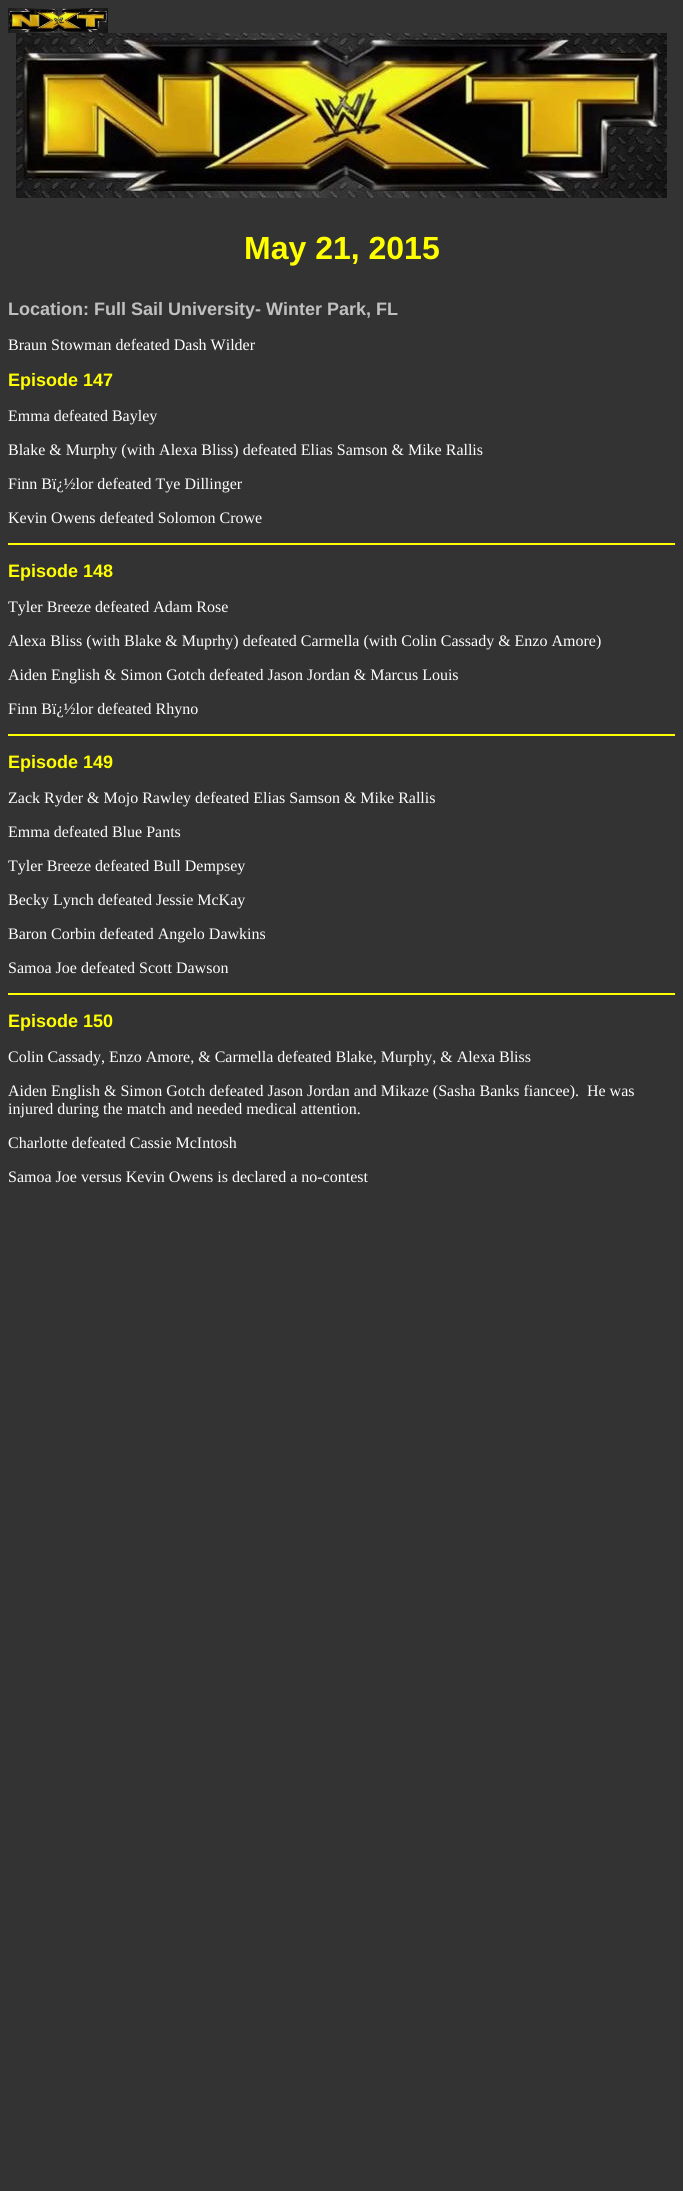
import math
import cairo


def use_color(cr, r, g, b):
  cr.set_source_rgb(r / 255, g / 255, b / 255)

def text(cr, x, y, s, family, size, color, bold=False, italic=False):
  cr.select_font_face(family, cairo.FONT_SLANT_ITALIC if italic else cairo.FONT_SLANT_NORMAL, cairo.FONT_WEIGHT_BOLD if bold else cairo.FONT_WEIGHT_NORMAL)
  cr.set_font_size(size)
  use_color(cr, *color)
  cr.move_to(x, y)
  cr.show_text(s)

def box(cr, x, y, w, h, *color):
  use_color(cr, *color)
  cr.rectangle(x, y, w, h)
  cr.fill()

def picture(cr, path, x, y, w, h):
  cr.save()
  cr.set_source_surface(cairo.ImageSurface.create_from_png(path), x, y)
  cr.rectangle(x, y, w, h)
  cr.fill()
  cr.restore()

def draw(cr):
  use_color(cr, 51, 51, 51)
  cr.paint()
  picture(cr, "img_01.png", 8, 8, 100, 25)
  picture(cr, "img_02.png", 16, 33, 651, 165)
  box(cr, 8, 543, 667, 2, 255, 255, 0)
  box(cr, 8, 734, 667, 2, 255, 255, 0)
  box(cr, 8, 993, 667, 2, 255, 255, 0)
  text(cr, 244, 259, "May 21, 2015", "Liberation Sans", 32, (255, 255, 0), bold=True)
  text(cr, 8, 315, "Location: Full Sail University- Winter Park, FL", "Liberation Sans", 18, (192, 192, 192), bold=True)
  text(cr, 8, 350, "Braun Stowman defeated Dash Wilder", "Liberation Serif", 16, (255, 255, 255))
  text(cr, 8, 386, "Episode 147", "Liberation Sans", 18, (255, 255, 0), bold=True)
  text(cr, 8, 421, "Emma defeated Bayley", "Liberation Serif", 16, (255, 255, 255))
  text(cr, 8, 455, "Blake & Murphy (with Alexa Bliss) defeated Elias Samson & Mike Rallis", "Liberation Serif", 16, (255, 255, 255))
  text(cr, 8, 489, "Finn Bï¿½lor defeated Tye Dillinger", "Liberation Serif", 16, (255, 255, 255))
  text(cr, 8, 523, "Kevin Owens defeated Solomon Crowe", "Liberation Serif", 16, (255, 255, 255))
  text(cr, 8, 577, "Episode 148", "Liberation Sans", 18, (255, 255, 0), bold=True)
  text(cr, 8, 612, "Tyler Breeze defeated Adam Rose", "Liberation Serif", 16, (255, 255, 255))
  text(cr, 8, 646, "Alexa Bliss (with Blake & Muprhy) defeated Carmella (with Colin Cassady & Enzo Amore)", "Liberation Serif", 16, (255, 255, 255))
  text(cr, 8, 680, "Aiden English & Simon Gotch defeated Jason Jordan & Marcus Louis", "Liberation Serif", 16, (255, 255, 255))
  text(cr, 8, 714, "Finn Bï¿½lor defeated Rhyno", "Liberation Serif", 16, (255, 255, 255))
  text(cr, 8, 768, "Episode 149", "Liberation Sans", 18, (255, 255, 0), bold=True)
  text(cr, 8, 803, "Zack Ryder & Mojo Rawley defeated Elias Samson & Mike Rallis", "Liberation Serif", 16, (255, 255, 255))
  text(cr, 8, 837, "Emma defeated Blue Pants", "Liberation Serif", 16, (255, 255, 255))
  text(cr, 8, 871, "Tyler Breeze defeated Bull Dempsey", "Liberation Serif", 16, (255, 255, 255))
  text(cr, 8, 905, "Becky Lynch defeated Jessie McKay", "Liberation Serif", 16, (255, 255, 255))
  text(cr, 8, 939, "Baron Corbin defeated Angelo Dawkins", "Liberation Serif", 16, (255, 255, 255))
  text(cr, 8, 973, "Samoa Joe defeated Scott Dawson", "Liberation Serif", 16, (255, 255, 255))
  text(cr, 8, 1027, "Episode 150", "Liberation Sans", 18, (255, 255, 0), bold=True)
  text(cr, 8, 1062, "Colin Cassady, Enzo Amore, & Carmella defeated Blake, Murphy, & Alexa Bliss", "Liberation Serif", 16, (255, 255, 255))
  text(cr, 8, 1096, "Aiden English & Simon Gotch defeated Jason Jordan and Mikaze (Sasha Banks fiancee).  He was", "Liberation Serif", 16, (255, 255, 255))
  text(cr, 8, 1114, "injured during the match and needed medical attention.", "Liberation Serif", 16, (255, 255, 255))
  text(cr, 8, 1148, "Charlotte defeated Cassie McIntosh", "Liberation Serif", 16, (255, 255, 255))
  text(cr, 8, 1182, "Samoa Joe versus Kevin Owens is declared a no-contest", "Liberation Serif", 16, (255, 255, 255))


surface = cairo.ImageSurface(cairo.FORMAT_RGB24, 683, 2191)
cr = cairo.Context(surface)
options = cairo.FontOptions()
options.set_hint_metrics(cairo.HINT_METRICS_OFF)
options.set_hint_style(cairo.HINT_STYLE_NONE)
cr.set_font_options(options)
cr.set_miter_limit(4)
draw(cr)
surface.write_to_png("out.png")
